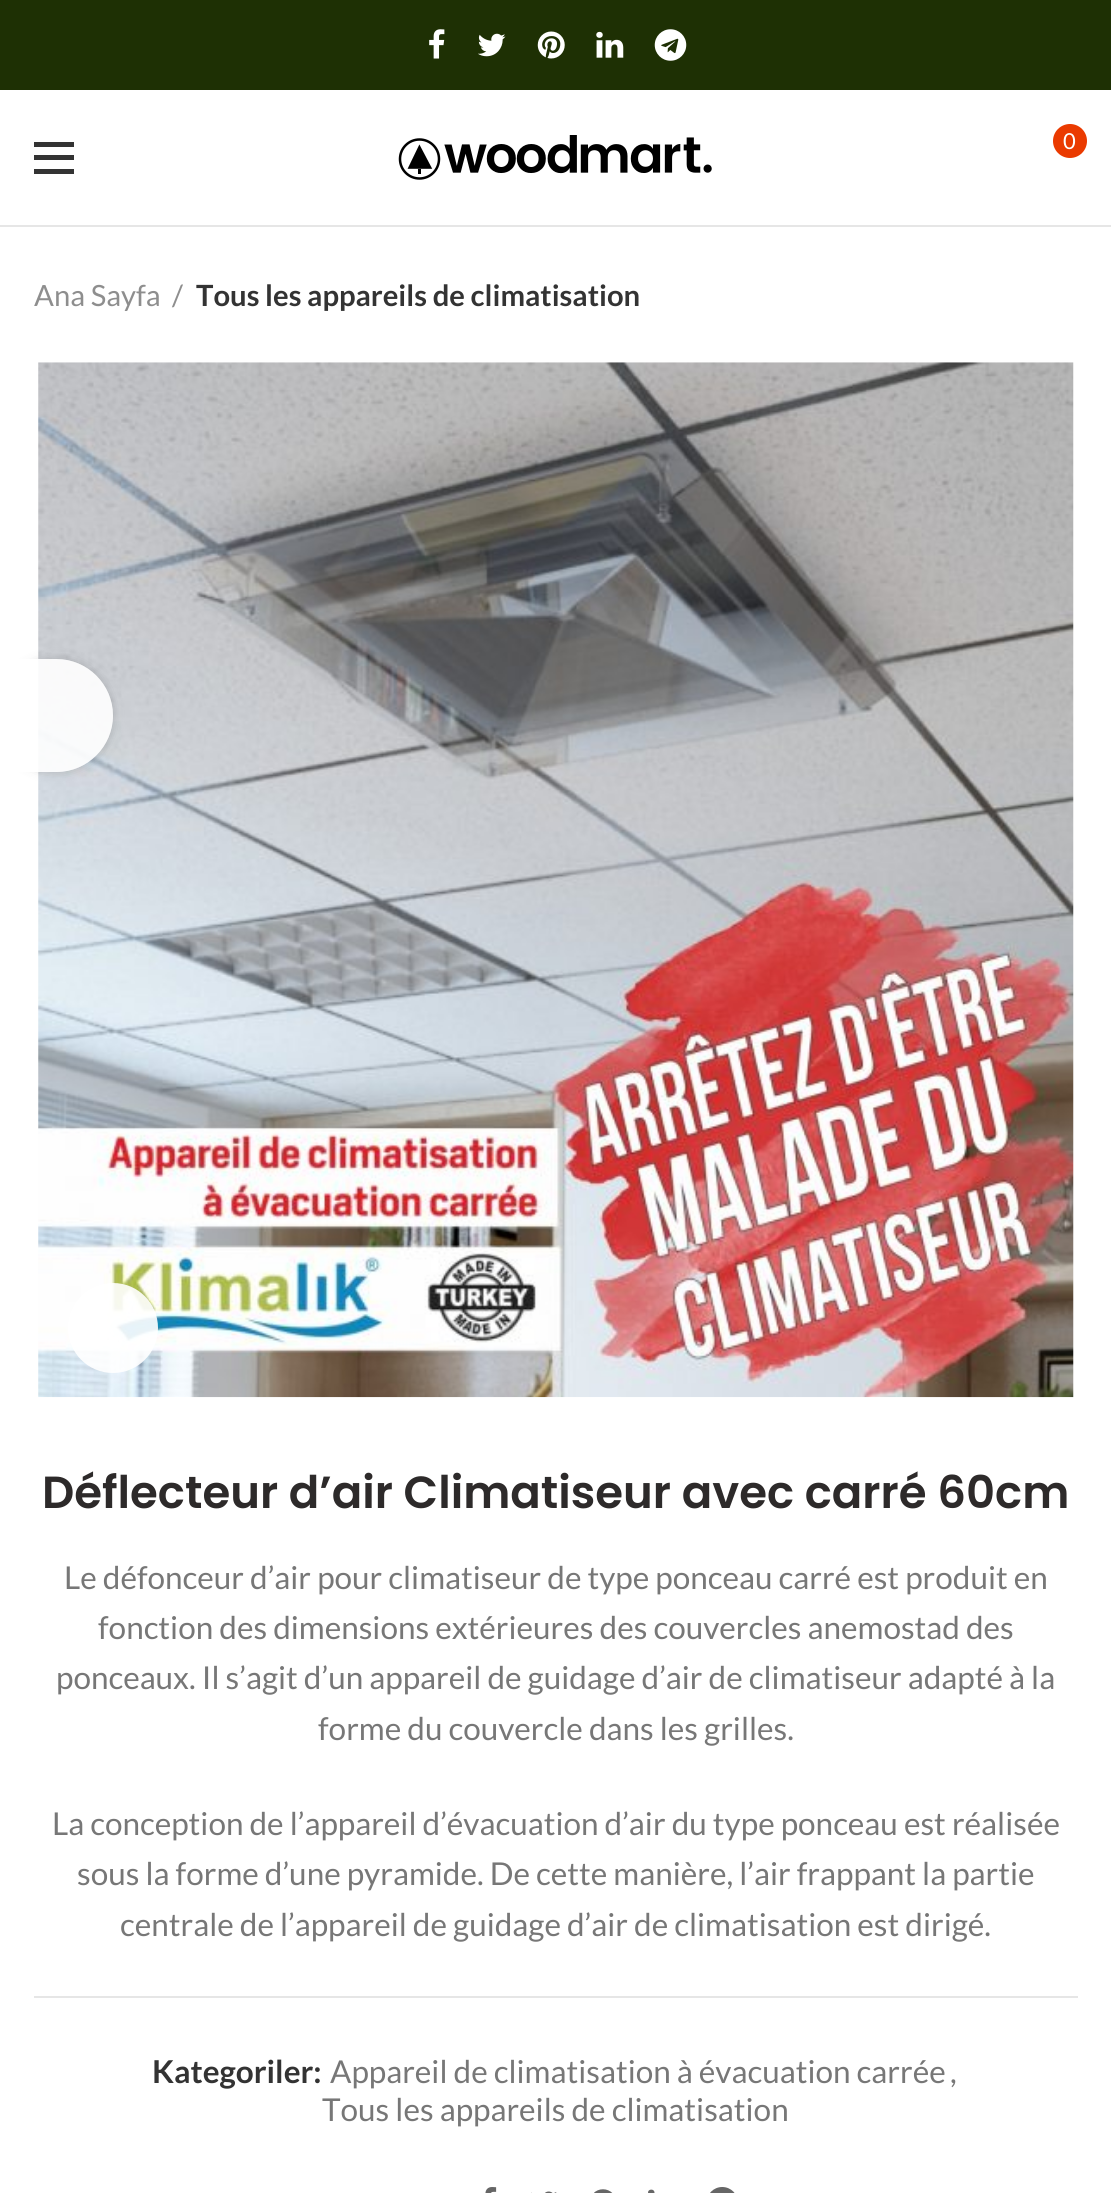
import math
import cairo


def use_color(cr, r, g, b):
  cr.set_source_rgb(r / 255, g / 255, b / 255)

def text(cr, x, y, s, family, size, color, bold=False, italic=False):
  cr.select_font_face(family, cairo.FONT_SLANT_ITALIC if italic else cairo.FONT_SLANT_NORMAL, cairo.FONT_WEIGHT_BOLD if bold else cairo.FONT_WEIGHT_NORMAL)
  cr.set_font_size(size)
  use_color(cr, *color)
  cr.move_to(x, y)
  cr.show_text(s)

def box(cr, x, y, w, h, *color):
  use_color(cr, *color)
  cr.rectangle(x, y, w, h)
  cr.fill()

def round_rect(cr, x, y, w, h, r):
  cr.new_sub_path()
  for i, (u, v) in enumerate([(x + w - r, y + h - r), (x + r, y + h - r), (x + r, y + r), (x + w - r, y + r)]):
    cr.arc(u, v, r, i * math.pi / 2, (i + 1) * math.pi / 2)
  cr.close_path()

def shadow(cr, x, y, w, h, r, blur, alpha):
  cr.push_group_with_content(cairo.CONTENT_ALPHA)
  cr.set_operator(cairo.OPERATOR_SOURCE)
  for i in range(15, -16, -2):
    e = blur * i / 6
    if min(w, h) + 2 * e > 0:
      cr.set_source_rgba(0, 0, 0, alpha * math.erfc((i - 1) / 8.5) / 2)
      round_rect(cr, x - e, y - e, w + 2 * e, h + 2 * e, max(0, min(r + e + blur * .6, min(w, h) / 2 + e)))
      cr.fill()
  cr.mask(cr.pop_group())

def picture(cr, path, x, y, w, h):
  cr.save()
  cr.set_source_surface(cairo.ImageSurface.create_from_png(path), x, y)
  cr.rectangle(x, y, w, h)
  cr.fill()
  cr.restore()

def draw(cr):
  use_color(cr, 255, 255, 255)
  cr.paint()
  box(cr, 0, 0, 1111, 90, 30, 48, 4)
  picture(cr, "img_01.png", 429, 29, 16, 30)
  picture(cr, "img_02.png", 478, 33, 28, 24)
  picture(cr, "img_03.png", 537, 31, 28, 28)
  picture(cr, "img_04.png", 596, 31, 28, 27)
  picture(cr, "img_05.png", 654, 29, 33, 32)
  box(cr, 0, 225, 1111, 2, 230, 230, 230)
  box(cr, 34, 155, 40, 5, 51, 51, 51)
  box(cr, 34, 142, 40, 5, 51, 51, 51)
  box(cr, 34, 169, 40, 5, 51, 51, 51)
  picture(cr, "img_06.png", 398, 135, 314, 45)
  use_color(cr, 234, 58, 0)
  cr.arc(1070, 141, 17, 0, 2 * math.pi)
  cr.fill()
  picture(cr, "img_07.png", 38, 362, 1036, 1036)
  cr.set_source_rgba(1, 1, 1, 0.9)
  cr.arc(113, 1328, 45, 0, 2 * math.pi)
  cr.fill()
  box(cr, 34, 1996, 1044, 2, 230, 230, 230)
  picture(cr, "img_08.png", 485, 2187, 12, 6)
  picture(cr, "img_09.png", 531, 2191, 26, 2)
  picture(cr, "img_10.png", 594, 2189, 19, 4)
  picture(cr, "img_11.png", 648, 2189, 7, 4)
  picture(cr, "img_12.png", 710, 2187, 25, 6)
  cr.save()
  cr.set_fill_rule(cairo.FILL_RULE_EVEN_ODD)
  cr.new_path()
  cr.move_to(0, 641)
  cr.line_to(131, 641)
  cr.line_to(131, 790)
  cr.line_to(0, 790)
  cr.close_path()
  cr.move_to(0, 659)
  cr.line_to(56.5, 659)
  cr.curve_to(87.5, 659, 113, 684.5, 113, 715.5)
  cr.curve_to(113, 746.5, 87.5, 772, 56.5, 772)
  cr.line_to(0, 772)
  cr.close_path()
  cr.clip()
  use_color(cr, 0, 0, 0)
  shadow(cr, 0, 659, 113, 113, 56.5, 5.5, 0.17)
  cr.restore()
  cr.set_source_rgba(1, 1, 1, 0.9)
  cr.new_path()
  cr.move_to(0, 659)
  cr.line_to(56.5, 659)
  cr.curve_to(87.5, 659, 113, 684.5, 113, 715.5)
  cr.curve_to(113, 746.5, 87.5, 772, 56.5, 772)
  cr.line_to(0, 772)
  cr.close_path()
  cr.fill()
  text(cr, 1063, 149, "0", "Lato", 22, (255, 255, 255))
  text(cr, 34, 306, "Ana Sayfa", "Lato", 29.25, (142, 142, 142))
  text(cr, 172, 306, "/", "Lato", 29.25, (142, 142, 142))
  text(cr, 196, 306, "Tous les appareils de climatisation", "Lato", 29.25, (51, 51, 51), bold=True)
  text(cr, 42, 1508, "Déflecteur d’air Climatiseur avec carré 60cm", "Poppins SemiBold", 45, (45, 42, 42))
  text(cr, 64, 1589, "Le défonceur d’air pour climatiseur de type ponceau carré est produit en", "Lato", 31.5, (119, 119, 119))
  text(cr, 98, 1639, "fonction des dimensions extérieures des couvercles anemostad des", "Lato", 31.5, (119, 119, 119))
  text(cr, 56, 1689, "ponceaux. Il s’agit d’un appareil de guidage d’air de climatiseur adapté à la", "Lato", 31.5, (119, 119, 119))
  text(cr, 318, 1740, "forme du couvercle dans les grilles.", "Lato", 31.5, (119, 119, 119))
  text(cr, 52, 1835, "La conception de l’appareil d’évacuation d’air du type ponceau est réalisée", "Lato", 31.5, (119, 119, 119))
  text(cr, 77, 1885, "sous la forme d’une pyramide. De cette manière, l’air frappant la partie", "Lato", 31.5, (119, 119, 119))
  text(cr, 120, 1936, "centrale de l’appareil de guidage d’air de climatisation est dirigé.", "Lato", 31.5, (119, 119, 119))
  text(cr, 152, 2083, "Kategoriler:", "Lato", 31.5, (51, 51, 51), bold=True)
  text(cr, 330, 2083, "Appareil de climatisation à évacuation carrée", "Lato", 31.5, (119, 119, 119))
  text(cr, 950, 2083, ",", "Lato", 31.5, (119, 119, 119))
  text(cr, 322, 2121, "Tous les appareils de climatisation", "Lato", 31.5, (119, 119, 119))


surface = cairo.ImageSurface(cairo.FORMAT_RGB24, 1111, 2193)
cr = cairo.Context(surface)
options = cairo.FontOptions()
options.set_hint_metrics(cairo.HINT_METRICS_OFF)
options.set_hint_style(cairo.HINT_STYLE_NONE)
cr.set_font_options(options)
cr.set_miter_limit(4)
draw(cr)
surface.write_to_png("out.png")
